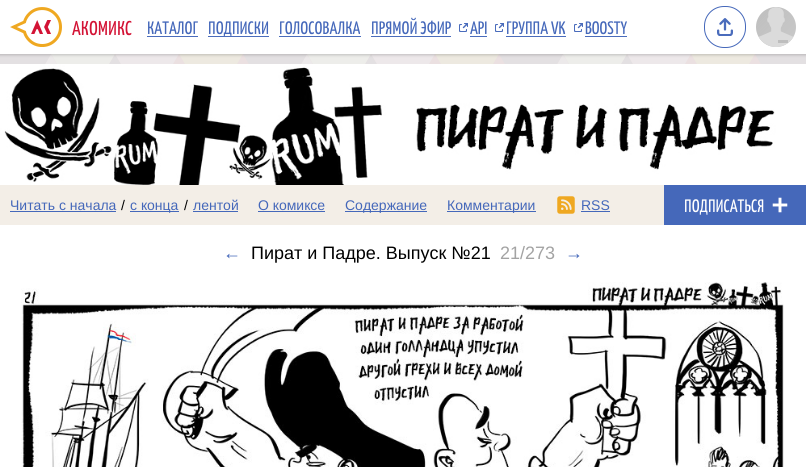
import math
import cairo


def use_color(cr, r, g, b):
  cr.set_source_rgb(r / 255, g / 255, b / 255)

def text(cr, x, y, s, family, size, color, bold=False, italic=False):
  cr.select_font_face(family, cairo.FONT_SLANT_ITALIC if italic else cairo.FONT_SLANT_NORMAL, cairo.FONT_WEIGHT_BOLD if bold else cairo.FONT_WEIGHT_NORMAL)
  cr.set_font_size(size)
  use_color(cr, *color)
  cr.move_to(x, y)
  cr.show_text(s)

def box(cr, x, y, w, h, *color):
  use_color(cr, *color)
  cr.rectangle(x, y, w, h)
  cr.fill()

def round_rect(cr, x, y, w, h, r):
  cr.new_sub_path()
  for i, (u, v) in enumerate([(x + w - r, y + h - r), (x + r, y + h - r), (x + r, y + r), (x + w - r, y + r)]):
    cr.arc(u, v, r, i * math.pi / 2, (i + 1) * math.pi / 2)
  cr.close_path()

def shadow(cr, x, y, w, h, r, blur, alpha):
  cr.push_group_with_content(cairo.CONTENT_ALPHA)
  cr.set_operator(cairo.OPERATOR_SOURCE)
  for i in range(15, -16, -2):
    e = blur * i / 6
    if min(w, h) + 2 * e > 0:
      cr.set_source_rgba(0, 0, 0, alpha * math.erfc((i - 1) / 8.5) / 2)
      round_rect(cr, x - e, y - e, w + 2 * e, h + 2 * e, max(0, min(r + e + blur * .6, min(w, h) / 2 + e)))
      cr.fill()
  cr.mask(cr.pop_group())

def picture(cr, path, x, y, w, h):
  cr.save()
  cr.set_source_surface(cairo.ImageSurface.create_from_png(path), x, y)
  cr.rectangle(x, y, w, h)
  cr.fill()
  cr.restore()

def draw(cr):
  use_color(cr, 255, 255, 255)
  cr.paint()
  picture(cr, "img_01.png", 0, 54, 806, 10)
  use_color(cr, 0, 0, 0)
  shadow(cr, -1, -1, 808, 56, 0, 1.5, 0.2)
  box(cr, 0, 0, 806, 54, 255, 255, 255)
  picture(cr, "img_02.png", 10, 7, 52, 40)
  box(cr, 147, 36, 51, 1, 74, 108, 188)
  box(cr, 279, 36, 82, 1, 74, 108, 188)
  box(cr, 371, 36, 80, 1, 74, 108, 188)
  picture(cr, "img_03.png", 459, 23, 9, 9)
  box(cr, 470, 36, 17, 1, 74, 108, 188)
  picture(cr, "img_03.png", 495, 23, 9, 9)
  box(cr, 506, 36, 60, 1, 74, 108, 188)
  picture(cr, "img_03.png", 574, 23, 9, 9)
  box(cr, 585, 36, 42, 1, 74, 108, 188)
  picture(cr, "img_04.png", 717, 18, 16, 18)
  round_rect(cr, 704.5, 6.5, 41, 41, 19.5)
  use_color(cr, 69, 104, 186)
  cr.set_line_width(1)
  cr.stroke()
  picture(cr, "img_05.png", 756, 7, 40, 40)
  picture(cr, "img_06.png", 0, 64, 806, 121)
  box(cr, 0, 185, 664, 40, 243, 238, 231)
  box(cr, 10, 211, 106, 1, 69, 104, 186)
  box(cr, 130, 211, 49, 1, 69, 104, 186)
  box(cr, 193, 211, 45, 1, 69, 104, 186)
  box(cr, 258, 211, 67, 1, 69, 104, 186)
  box(cr, 345, 211, 82, 1, 69, 104, 186)
  box(cr, 447, 211, 89, 1, 69, 104, 186)
  picture(cr, "img_07.png", 557, 196, 18, 18)
  box(cr, 581, 211, 29, 1, 69, 104, 186)
  box(cr, 664, 185, 142, 40, 69, 104, 186)
  picture(cr, "img_08.png", 772, 197, 16, 16)
  picture(cr, "img_09.png", 21, 282, 763, 185)
  text(cr, 72, 35, "АКОМИКС", "Yanone Kaffeesatz", 20, (211, 19, 53))
  text(cr, 147, 34, "КАТАЛОГ", "Yanone Kaffeesatz", 18, (69, 104, 186))
  text(cr, 208, 34, "ПОДПИСКИ", "Yanone Kaffeesatz", 18, (69, 104, 186))
  box(cr, 208, 36, 61, 1, 74, 108, 188)
  text(cr, 279, 34, "ГОЛОСОВАЛКА", "Yanone Kaffeesatz", 18, (69, 104, 186))
  text(cr, 371, 34, "ПРЯМОЙ ЭФИР", "Yanone Kaffeesatz", 18, (69, 104, 186))
  text(cr, 470, 34, "API", "Yanone Kaffeesatz", 18, (69, 104, 186))
  text(cr, 506, 34, "ГРУППА VK", "Yanone Kaffeesatz", 18, (69, 104, 186))
  text(cr, 585, 34, "BOOSTY", "Yanone Kaffeesatz", 18, (69, 104, 186))
  text(cr, 10, 210, "Читать с начала", "Liberation Sans", 14, (69, 104, 186))
  text(cr, 121, 210, "/", "Liberation Sans", 14, (0, 0, 0))
  text(cr, 130, 210, "с конца", "Liberation Sans", 14, (69, 104, 186))
  text(cr, 184, 210, "/", "Liberation Sans", 14, (0, 0, 0))
  text(cr, 193, 210, "лентой", "Liberation Sans", 14, (69, 104, 186))
  text(cr, 258, 210, "О комиксе", "Liberation Sans", 14, (69, 104, 186))
  text(cr, 345, 210, "Содержание", "Liberation Sans", 14, (69, 104, 186))
  text(cr, 447, 210, "Комментарии", "Liberation Sans", 14, (69, 104, 186))
  text(cr, 581, 210, "RSS", "Liberation Sans", 14, (69, 104, 186))
  text(cr, 684, 212, "ПОДПИСАТЬСЯ", "Yanone Kaffeesatz", 18, (255, 255, 255))
  text(cr, 223, 259, "←", "Liberation Sans", 18, (69, 104, 186))
  text(cr, 251, 259, "Пират и Падре. Выпуск №21", "Liberation Sans", 18, (0, 0, 0))
  text(cr, 500, 259, "21/273", "Liberation Sans", 18, (163, 163, 163))
  text(cr, 565, 259, "→", "Liberation Sans", 18, (69, 104, 186))


surface = cairo.ImageSurface(cairo.FORMAT_RGB24, 806, 467)
cr = cairo.Context(surface)
options = cairo.FontOptions()
options.set_hint_metrics(cairo.HINT_METRICS_OFF)
options.set_hint_style(cairo.HINT_STYLE_NONE)
cr.set_font_options(options)
cr.set_miter_limit(4)
draw(cr)
surface.write_to_png("out.png")
